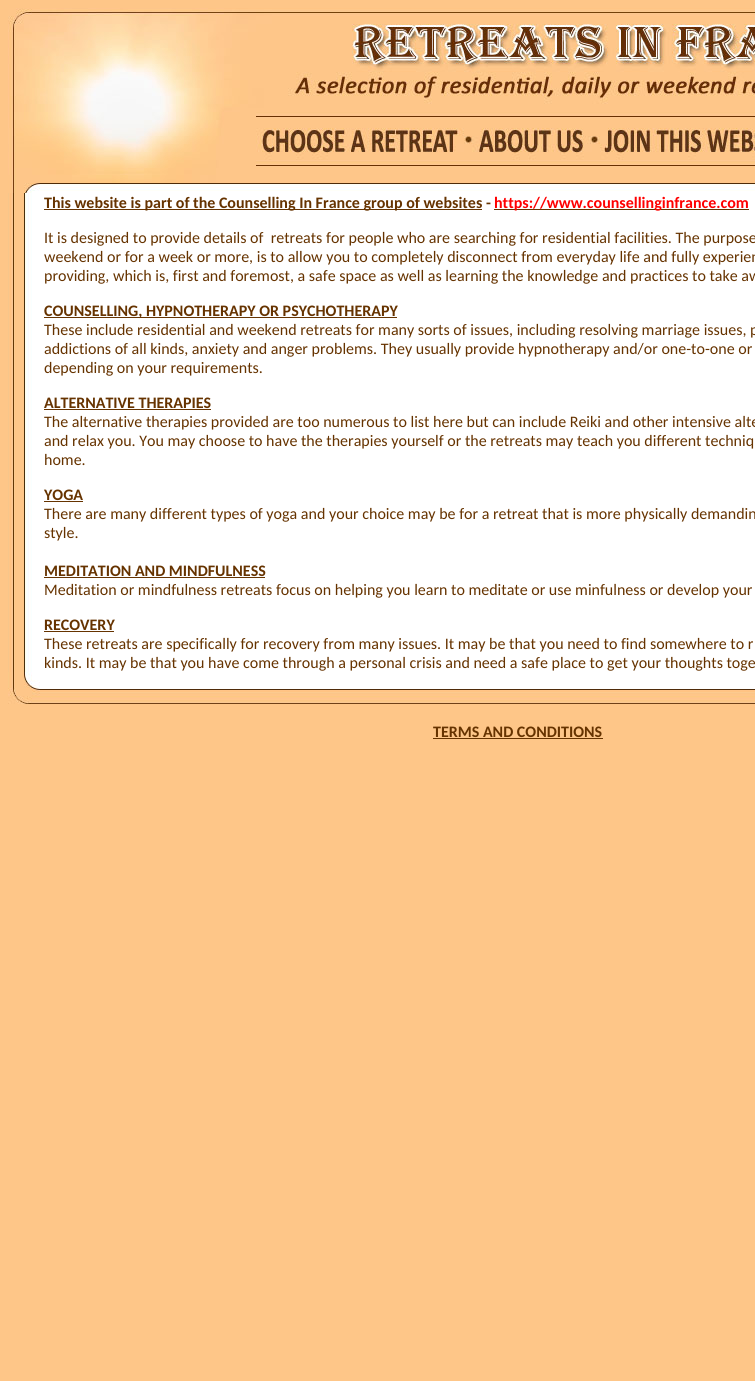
import math
import cairo


def use_color(cr, r, g, b):
  cr.set_source_rgb(r / 255, g / 255, b / 255)

def text(cr, x, y, s, family, size, color, bold=False, italic=False):
  cr.select_font_face(family, cairo.FONT_SLANT_ITALIC if italic else cairo.FONT_SLANT_NORMAL, cairo.FONT_WEIGHT_BOLD if bold else cairo.FONT_WEIGHT_NORMAL)
  cr.set_font_size(size)
  use_color(cr, *color)
  cr.move_to(x, y)
  cr.show_text(s)

def box(cr, x, y, w, h, *color):
  use_color(cr, *color)
  cr.rectangle(x, y, w, h)
  cr.fill()

def picture(cr, path, x, y, w, h):
  cr.save()
  cr.set_source_surface(cairo.ImageSurface.create_from_png(path), x, y)
  cr.rectangle(x, y, w, h)
  cr.fill()
  cr.restore()

def draw(cr):
  use_color(cr, 254, 198, 136)
  cr.paint()
  picture(cr, "img_01.png", 8, 8, 747, 167)
  picture(cr, "img_02.png", 12, 175, 743, 18)
  picture(cr, "img_03.png", 8, 193, 747, 479)
  box(cr, 44, 209, 438, 1, 102, 51, 0)
  box(cr, 494, 209, 255, 1, 102, 51, 0)
  box(cr, 44, 317, 353, 1, 102, 51, 0)
  box(cr, 44, 409, 167, 1, 102, 51, 0)
  box(cr, 44, 501, 39, 1, 102, 51, 0)
  box(cr, 44, 577, 221, 1, 102, 51, 0)
  box(cr, 44, 631, 70, 1, 102, 51, 0)
  picture(cr, "img_04.png", 8, 672, 747, 32)
  box(cr, 433, 738, 170, 1, 102, 51, 0)
  text(cr, 44, 208, "This website is part of the Counselling In France group of websites -", "Carlito", 16, (102, 51, 0), bold=True)
  text(cr, 494, 208, "https://www.counsellinginfrance.com", "Carlito", 16, (255, 0, 0), bold=True)
  text(cr, 44, 243, "It is designed to provide details of  retreats for people who are searching for residential facilities. The purpose", "Carlito", 16, (102, 51, 0))
  text(cr, 44, 262, "weekend or for a week or more, is to allow you to completely disconnect from everyday life and fully experien", "Carlito", 16, (102, 51, 0))
  text(cr, 44, 281, "providing, which is, first and foremost, a safe space as well as learning the knowledge and practices to take aw", "Carlito", 16, (102, 51, 0))
  text(cr, 44, 316, "COUNSELLING, HYPNOTHERAPY OR PSYCHOTHERAPY", "Carlito", 16, (102, 51, 0), bold=True)
  text(cr, 44, 335, "These include residential and weekend retreats for many sorts of issues, including resolving marriage issues, p", "Carlito", 16, (102, 51, 0))
  text(cr, 44, 354, "addictions of all kinds, anxiety and anger problems. They usually provide hypnotherapy and/or one-to-one or", "Carlito", 16, (102, 51, 0))
  text(cr, 44, 373, "depending on your requirements.", "Carlito", 16, (102, 51, 0))
  text(cr, 44, 408, "ALTERNATIVE THERAPIES", "Carlito", 16, (102, 51, 0), bold=True)
  text(cr, 44, 427, "The alternative therapies provided are too numerous to list here but can include Reiki and other intensive alte", "Carlito", 16, (102, 51, 0))
  text(cr, 44, 446, "and relax you. You may choose to have the therapies yourself or the retreats may teach you different techniq", "Carlito", 16, (102, 51, 0))
  text(cr, 44, 465, "home.", "Carlito", 16, (102, 51, 0))
  text(cr, 44, 500, "YOGA", "Carlito", 16, (102, 51, 0), bold=True)
  text(cr, 44, 519, "There are many different types of yoga and your choice may be for a retreat that is more physically demandin", "Carlito", 16, (102, 51, 0))
  text(cr, 44, 538, "style.", "Carlito", 16, (102, 51, 0))
  text(cr, 44, 576, "MEDITATION AND MINDFULNESS", "Carlito", 16, (102, 51, 0), bold=True)
  text(cr, 44, 595, "Meditation or mindfulness retreats focus on helping you learn to meditate or use minfulness or develop your", "Carlito", 16, (102, 51, 0))
  text(cr, 44, 630, "RECOVERY", "Carlito", 16, (102, 51, 0), bold=True)
  text(cr, 44, 649, "These retreats are specifically for recovery from many issues. It may be that you need to find somewhere to r", "Carlito", 16, (102, 51, 0))
  text(cr, 44, 668, "kinds. It may be that you have come through a personal crisis and need a safe place to get your thoughts toge", "Carlito", 16, (102, 51, 0))
  text(cr, 433, 737, "TERMS AND CONDITIONS", "Carlito", 16, (102, 51, 0), bold=True)


surface = cairo.ImageSurface(cairo.FORMAT_RGB24, 755, 1381)
cr = cairo.Context(surface)
options = cairo.FontOptions()
options.set_hint_metrics(cairo.HINT_METRICS_OFF)
options.set_hint_style(cairo.HINT_STYLE_NONE)
cr.set_font_options(options)
cr.set_miter_limit(4)
draw(cr)
surface.write_to_png("out.png")
